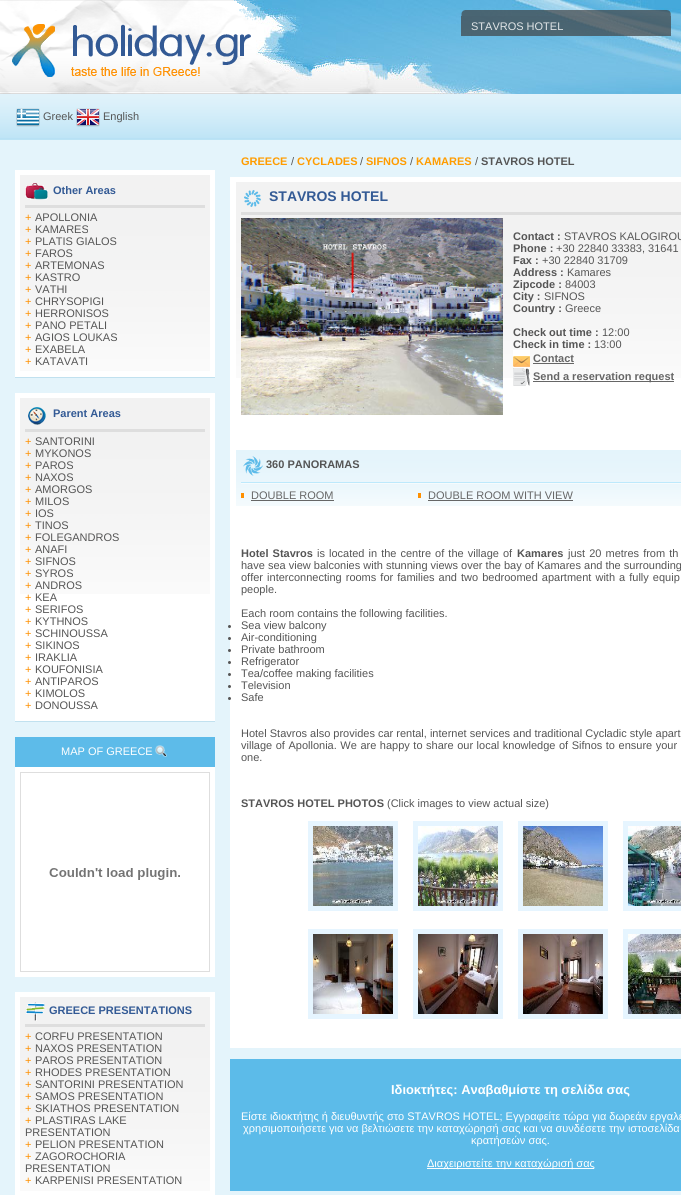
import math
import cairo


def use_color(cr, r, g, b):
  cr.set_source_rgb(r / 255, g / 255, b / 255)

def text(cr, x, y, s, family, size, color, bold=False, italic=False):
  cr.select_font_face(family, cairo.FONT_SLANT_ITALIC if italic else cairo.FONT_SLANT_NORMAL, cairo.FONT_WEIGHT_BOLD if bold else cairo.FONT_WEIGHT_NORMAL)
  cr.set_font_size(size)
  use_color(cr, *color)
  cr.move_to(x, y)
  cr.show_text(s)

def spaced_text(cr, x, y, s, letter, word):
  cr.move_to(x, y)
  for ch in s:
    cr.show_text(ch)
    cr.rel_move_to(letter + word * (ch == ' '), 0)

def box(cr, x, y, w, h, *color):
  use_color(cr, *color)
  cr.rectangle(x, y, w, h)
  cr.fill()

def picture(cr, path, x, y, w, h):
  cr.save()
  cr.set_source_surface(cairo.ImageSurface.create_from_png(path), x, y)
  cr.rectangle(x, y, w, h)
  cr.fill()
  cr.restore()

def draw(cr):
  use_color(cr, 255, 255, 255)
  cr.paint()
  picture(cr, "img_01.png", 256, 0, 425, 94)
  picture(cr, "img_02.png", 0, 0, 256, 94)
  picture(cr, "img_03.png", 461, 10, 210, 6)
  cr.set_source_rgba(0.247, 0.247, 0.247, 0.68)
  cr.rectangle(461, 16, 210, 20)
  cr.fill()
  picture(cr, "img_04.png", 0, 94, 16, 46)
  picture(cr, "img_05.png", 16, 94, 142, 46)
  picture(cr, "img_06.png", 16, 108, 24, 19)
  picture(cr, "img_07.png", 76, 108, 24, 19)
  picture(cr, "img_08.png", 158, 94, 456, 46)
  picture(cr, "img_09.png", 614, 94, 67, 46)
  box(cr, 0, 140, 681, 15, 228, 244, 251)
  box(cr, 0, 155, 15, 1040, 228, 244, 251)
  box(cr, 215, 155, 466, 1040, 228, 244, 251)
  box(cr, 15, 155, 200, 837, 228, 244, 251)
  box(cr, 15, 170, 200, 207, 255, 255, 255)
  picture(cr, "img_10.png", 20, 175, 190, 196)
  picture(cr, "img_11.png", 25, 183, 23, 17)
  box(cr, 25, 205, 180, 3, 222, 222, 222)
  box(cr, 15, 377, 200, 1, 193, 225, 239)
  box(cr, 15, 393, 200, 328, 255, 255, 255)
  picture(cr, "img_10.png", 20, 398, 190, 196)
  picture(cr, "img_12.png", 28, 407, 18, 18)
  box(cr, 25, 429, 180, 3, 222, 222, 222)
  box(cr, 15, 721, 200, 1, 193, 225, 239)
  box(cr, 15, 737, 200, 30, 93, 187, 233)
  picture(cr, "img_13.png", 155, 745, 12, 12)
  box(cr, 15, 767, 200, 210, 255, 255, 255)
  cr.rectangle(20.5, 772.5, 189, 199)
  use_color(cr, 222, 222, 222)
  cr.set_line_width(1)
  cr.stroke()
  picture(cr, "img_14.png", 49, 868, 131, 12)
  picture(cr, "img_15.png", 20, 997, 190, 194)
  picture(cr, "img_16.png", 26, 1002, 19, 19)
  box(cr, 25, 1024, 180, 3, 222, 222, 222)
  box(cr, 230, 177, 451, 871, 255, 255, 255)
  picture(cr, "img_17.png", 236, 182, 445, 196)
  picture(cr, "img_18.png", 244, 190, 17, 17)
  box(cr, 241, 212, 440, 3, 222, 222, 222)
  picture(cr, "img_19.png", 241, 218, 262, 197)
  picture(cr, "img_20.png", 513, 350, 17, 18)
  box(cr, 533, 363, 41, 1, 102, 102, 102)
  picture(cr, "img_21.png", 513, 368, 17, 18)
  box(cr, 533, 381, 141, 1, 102, 102, 102)
  picture(cr, "img_22.png", 236, 450, 445, 56)
  picture(cr, "img_23.png", 243, 456, 20, 20)
  picture(cr, "img_24.png", 241, 482, 440, 2)
  box(cr, 241, 493, 3, 5, 255, 144, 0)
  box(cr, 251, 500, 83, 1, 102, 102, 102)
  box(cr, 418, 493, 3, 5, 255, 144, 0)
  box(cr, 428, 500, 145, 1, 102, 102, 102)
  use_color(cr, 85, 85, 85)
  cr.arc(229.5, 626.5, 1.5, 0, 2 * math.pi)
  cr.fill()
  cr.arc(229.5, 638.5, 1.5, 0, 2 * math.pi)
  cr.fill()
  cr.arc(229.5, 650.5, 1.5, 0, 2 * math.pi)
  cr.fill()
  cr.arc(229.5, 662.5, 1.5, 0, 2 * math.pi)
  cr.fill()
  cr.arc(229.5, 674.5, 1.5, 0, 2 * math.pi)
  cr.fill()
  cr.arc(229.5, 686.5, 1.5, 0, 2 * math.pi)
  cr.fill()
  cr.arc(229.5, 698.5, 1.5, 0, 2 * math.pi)
  cr.fill()
  box(cr, 308, 821, 90, 90, 230, 245, 255)
  picture(cr, "img_25.png", 313, 826, 80, 80)
  box(cr, 413, 821, 90, 90, 230, 245, 255)
  picture(cr, "img_26.png", 418, 826, 80, 80)
  box(cr, 518, 821, 90, 90, 230, 245, 255)
  picture(cr, "img_27.png", 523, 826, 80, 80)
  box(cr, 623, 821, 58, 90, 230, 245, 255)
  picture(cr, "img_28.png", 628, 826, 53, 80)
  box(cr, 308, 929, 90, 90, 230, 245, 255)
  picture(cr, "img_29.png", 313, 934, 80, 80)
  box(cr, 413, 929, 90, 90, 230, 245, 255)
  picture(cr, "img_30.png", 418, 934, 80, 80)
  box(cr, 518, 929, 90, 90, 230, 245, 255)
  picture(cr, "img_31.png", 523, 934, 80, 80)
  box(cr, 623, 929, 58, 90, 230, 245, 255)
  picture(cr, "img_32.png", 628, 934, 53, 80)
  box(cr, 230, 1059, 451, 132, 92, 187, 233)
  box(cr, 427, 1168, 167, 1, 255, 255, 255)
  text(cr, 471, 30, "STAVROS HOTEL", "Liberation Sans", 11, (226, 230, 232))
  text(cr, 43, 120, "Greek", "Liberation Sans", 11, (85, 85, 85))
  text(cr, 103, 120, "English", "Liberation Sans", 11, (85, 85, 85))
  text(cr, 53, 194, "Other Areas", "Liberation Sans", 11, (51, 90, 149), bold=True)
  text(cr, 25, 221, "+", "Liberation Sans", 11, (255, 144, 0))
  text(cr, 35, 221, "APOLLONIA", "Liberation Sans", 11, (85, 85, 85))
  text(cr, 25, 233, "+", "Liberation Sans", 11, (255, 144, 0))
  text(cr, 35, 233, "KAMARES", "Liberation Sans", 11, (85, 85, 85))
  text(cr, 25, 245, "+", "Liberation Sans", 11, (255, 144, 0))
  text(cr, 35, 245, "PLATIS GIALOS", "Liberation Sans", 11, (85, 85, 85))
  text(cr, 25, 257, "+", "Liberation Sans", 11, (255, 144, 0))
  text(cr, 35, 257, "FAROS", "Liberation Sans", 11, (85, 85, 85))
  text(cr, 25, 269, "+", "Liberation Sans", 11, (255, 144, 0))
  text(cr, 35, 269, "ARTEMONAS", "Liberation Sans", 11, (85, 85, 85))
  text(cr, 25, 281, "+", "Liberation Sans", 11, (255, 144, 0))
  text(cr, 35, 281, "KASTRO", "Liberation Sans", 11, (85, 85, 85))
  text(cr, 25, 293, "+", "Liberation Sans", 11, (255, 144, 0))
  text(cr, 35, 293, "VATHI", "Liberation Sans", 11, (85, 85, 85))
  text(cr, 25, 305, "+", "Liberation Sans", 11, (255, 144, 0))
  text(cr, 35, 305, "CHRYSOPIGI", "Liberation Sans", 11, (85, 85, 85))
  text(cr, 25, 317, "+", "Liberation Sans", 11, (255, 144, 0))
  text(cr, 35, 317, "HERRONISOS", "Liberation Sans", 11, (85, 85, 85))
  text(cr, 25, 329, "+", "Liberation Sans", 11, (255, 144, 0))
  text(cr, 35, 329, "PANO PETALI", "Liberation Sans", 11, (85, 85, 85))
  text(cr, 25, 341, "+", "Liberation Sans", 11, (255, 144, 0))
  text(cr, 35, 341, "AGIOS LOUKAS", "Liberation Sans", 11, (85, 85, 85))
  text(cr, 25, 353, "+", "Liberation Sans", 11, (255, 144, 0))
  text(cr, 35, 353, "EXABELA", "Liberation Sans", 11, (85, 85, 85))
  text(cr, 25, 365, "+", "Liberation Sans", 11, (255, 144, 0))
  text(cr, 35, 365, "KATAVATI", "Liberation Sans", 11, (85, 85, 85))
  text(cr, 53, 417, "Parent Areas", "Liberation Sans", 11, (51, 90, 149), bold=True)
  text(cr, 25, 445, "+", "Liberation Sans", 11, (255, 144, 0))
  text(cr, 35, 445, "SANTORINI", "Liberation Sans", 11, (85, 85, 85))
  text(cr, 25, 457, "+", "Liberation Sans", 11, (255, 144, 0))
  text(cr, 35, 457, "MYKONOS", "Liberation Sans", 11, (85, 85, 85))
  text(cr, 25, 469, "+", "Liberation Sans", 11, (255, 144, 0))
  text(cr, 35, 469, "PAROS", "Liberation Sans", 11, (85, 85, 85))
  text(cr, 25, 481, "+", "Liberation Sans", 11, (255, 144, 0))
  text(cr, 35, 481, "NAXOS", "Liberation Sans", 11, (85, 85, 85))
  text(cr, 25, 493, "+", "Liberation Sans", 11, (255, 144, 0))
  text(cr, 35, 493, "AMORGOS", "Liberation Sans", 11, (85, 85, 85))
  text(cr, 25, 505, "+", "Liberation Sans", 11, (255, 144, 0))
  text(cr, 35, 505, "MILOS", "Liberation Sans", 11, (85, 85, 85))
  text(cr, 25, 517, "+", "Liberation Sans", 11, (255, 144, 0))
  text(cr, 35, 517, "IOS", "Liberation Sans", 11, (85, 85, 85))
  text(cr, 25, 529, "+", "Liberation Sans", 11, (255, 144, 0))
  text(cr, 35, 529, "TINOS", "Liberation Sans", 11, (85, 85, 85))
  text(cr, 25, 541, "+", "Liberation Sans", 11, (255, 144, 0))
  text(cr, 35, 541, "FOLEGANDROS", "Liberation Sans", 11, (85, 85, 85))
  text(cr, 25, 553, "+", "Liberation Sans", 11, (255, 144, 0))
  text(cr, 35, 553, "ANAFI", "Liberation Sans", 11, (85, 85, 85))
  text(cr, 25, 565, "+", "Liberation Sans", 11, (255, 144, 0))
  text(cr, 35, 565, "SIFNOS", "Liberation Sans", 11, (85, 85, 85))
  text(cr, 25, 577, "+", "Liberation Sans", 11, (255, 144, 0))
  text(cr, 35, 577, "SYROS", "Liberation Sans", 11, (85, 85, 85))
  text(cr, 25, 589, "+", "Liberation Sans", 11, (255, 144, 0))
  text(cr, 35, 589, "ANDROS", "Liberation Sans", 11, (85, 85, 85))
  text(cr, 25, 601, "+", "Liberation Sans", 11, (255, 144, 0))
  text(cr, 35, 601, "KEA", "Liberation Sans", 11, (85, 85, 85))
  text(cr, 25, 613, "+", "Liberation Sans", 11, (255, 144, 0))
  text(cr, 35, 613, "SERIFOS", "Liberation Sans", 11, (85, 85, 85))
  text(cr, 25, 625, "+", "Liberation Sans", 11, (255, 144, 0))
  text(cr, 35, 625, "KYTHNOS", "Liberation Sans", 11, (85, 85, 85))
  text(cr, 25, 637, "+", "Liberation Sans", 11, (255, 144, 0))
  text(cr, 35, 637, "SCHINOUSSA", "Liberation Sans", 11, (85, 85, 85))
  text(cr, 25, 649, "+", "Liberation Sans", 11, (255, 144, 0))
  text(cr, 35, 649, "SIKINOS", "Liberation Sans", 11, (85, 85, 85))
  text(cr, 25, 661, "+", "Liberation Sans", 11, (255, 144, 0))
  text(cr, 35, 661, "IRAKLIA", "Liberation Sans", 11, (85, 85, 85))
  text(cr, 25, 673, "+", "Liberation Sans", 11, (255, 144, 0))
  text(cr, 35, 673, "KOUFONISIA", "Liberation Sans", 11, (85, 85, 85))
  text(cr, 25, 685, "+", "Liberation Sans", 11, (255, 144, 0))
  text(cr, 35, 685, "ANTIPAROS", "Liberation Sans", 11, (85, 85, 85))
  text(cr, 25, 697, "+", "Liberation Sans", 11, (255, 144, 0))
  text(cr, 35, 697, "KIMOLOS", "Liberation Sans", 11, (85, 85, 85))
  text(cr, 25, 709, "+", "Liberation Sans", 11, (255, 144, 0))
  text(cr, 35, 709, "DONOUSSA", "Liberation Sans", 11, (85, 85, 85))
  text(cr, 61, 755, "MAP OF GREECE", "Liberation Sans", 11, (255, 255, 255))
  text(cr, 49, 1014, "GREECE PRESENTATIONS", "Liberation Sans", 11, (51, 90, 149), bold=True)
  text(cr, 25, 1040, "+", "Liberation Sans", 11, (255, 144, 0))
  text(cr, 35, 1040, "CORFU PRESENTATION", "Liberation Sans", 11, (85, 85, 85))
  text(cr, 25, 1052, "+", "Liberation Sans", 11, (255, 144, 0))
  text(cr, 35, 1052, "NAXOS PRESENTATION", "Liberation Sans", 11, (85, 85, 85))
  text(cr, 25, 1064, "+", "Liberation Sans", 11, (255, 144, 0))
  text(cr, 35, 1064, "PAROS PRESENTATION", "Liberation Sans", 11, (85, 85, 85))
  text(cr, 25, 1076, "+", "Liberation Sans", 11, (255, 144, 0))
  text(cr, 35, 1076, "RHODES PRESENTATION", "Liberation Sans", 11, (85, 85, 85))
  text(cr, 25, 1088, "+", "Liberation Sans", 11, (255, 144, 0))
  text(cr, 35, 1088, "SANTORINI PRESENTATION", "Liberation Sans", 11, (85, 85, 85))
  text(cr, 25, 1100, "+", "Liberation Sans", 11, (255, 144, 0))
  text(cr, 35, 1100, "SAMOS PRESENTATION", "Liberation Sans", 11, (85, 85, 85))
  text(cr, 25, 1112, "+", "Liberation Sans", 11, (255, 144, 0))
  text(cr, 35, 1112, "SKIATHOS PRESENTATION", "Liberation Sans", 11, (85, 85, 85))
  text(cr, 25, 1124, "+", "Liberation Sans", 11, (255, 144, 0))
  text(cr, 35, 1124, "PLASTIRAS LAKE", "Liberation Sans", 11, (85, 85, 85))
  text(cr, 25, 1136, "PRESENTATION", "Liberation Sans", 11, (85, 85, 85))
  text(cr, 25, 1148, "+", "Liberation Sans", 11, (255, 144, 0))
  text(cr, 35, 1148, "PELION PRESENTATION", "Liberation Sans", 11, (85, 85, 85))
  text(cr, 25, 1160, "+", "Liberation Sans", 11, (255, 144, 0))
  text(cr, 35, 1160, "ZAGOROCHORIA", "Liberation Sans", 11, (85, 85, 85))
  text(cr, 25, 1172, "PRESENTATION", "Liberation Sans", 11, (85, 85, 85))
  text(cr, 25, 1184, "+", "Liberation Sans", 11, (255, 144, 0))
  text(cr, 35, 1184, "KARPENISI PRESENTATION", "Liberation Sans", 11, (85, 85, 85))
  text(cr, 241, 165, "GREECE", "Liberation Sans", 11, (255, 156, 0), bold=True)
  text(cr, 291, 165, "/", "Liberation Sans", 11, (85, 85, 85))
  text(cr, 297, 165, "CYCLADES", "Liberation Sans", 11, (255, 156, 0), bold=True)
  text(cr, 360, 165, "/", "Liberation Sans", 11, (85, 85, 85))
  text(cr, 366, 165, "SIFNOS", "Liberation Sans", 11, (255, 156, 0), bold=True)
  text(cr, 410, 165, "/", "Liberation Sans", 11, (85, 85, 85))
  text(cr, 416, 165, "KAMARES", "Liberation Sans", 11, (255, 156, 0), bold=True)
  text(cr, 475, 165, "/", "Liberation Sans", 11, (85, 85, 85))
  text(cr, 481, 165, "STAVROS HOTEL", "Liberation Sans", 11, (85, 85, 85), bold=True)
  text(cr, 269, 201, "STAVROS HOTEL", "Liberation Sans", 14, (51, 90, 149), bold=True)
  text(cr, 513, 240, "Contact :", "Liberation Sans", 11, (85, 85, 85), bold=True)
  text(cr, 564, 240, "STAVROS KALOGIROU", "Liberation Sans", 11, (85, 85, 85))
  text(cr, 513, 252, "Phone :", "Liberation Sans", 11, (85, 85, 85), bold=True)
  text(cr, 556, 252, "+30 22840 33383, 31641", "Liberation Sans", 11, (85, 85, 85))
  text(cr, 513, 264, "Fax :", "Liberation Sans", 11, (85, 85, 85), bold=True)
  text(cr, 542, 264, "+30 22840 31709", "Liberation Sans", 11, (85, 85, 85))
  text(cr, 513, 276, "Address :", "Liberation Sans", 11, (85, 85, 85), bold=True)
  text(cr, 567, 276, "Kamares", "Liberation Sans", 11, (85, 85, 85))
  text(cr, 513, 288, "Zipcode :", "Liberation Sans", 11, (85, 85, 85), bold=True)
  text(cr, 565, 288, "84003", "Liberation Sans", 11, (85, 85, 85))
  text(cr, 513, 300, "City :", "Liberation Sans", 11, (85, 85, 85), bold=True)
  text(cr, 544, 300, "SIFNOS", "Liberation Sans", 11, (85, 85, 85))
  text(cr, 513, 312, "Country :", "Liberation Sans", 11, (85, 85, 85), bold=True)
  text(cr, 565, 312, "Greece", "Liberation Sans", 11, (85, 85, 85))
  text(cr, 513, 336, "Check out time :", "Liberation Sans", 11, (85, 85, 85), bold=True)
  text(cr, 602, 336, "12:00", "Liberation Sans", 11, (85, 85, 85))
  text(cr, 513, 348, "Check in time :", "Liberation Sans", 11, (85, 85, 85), bold=True)
  text(cr, 594, 348, "13:00", "Liberation Sans", 11, (85, 85, 85))
  text(cr, 533, 362, "Contact", "Liberation Sans", 11, (102, 102, 102), bold=True)
  text(cr, 533, 380, "Send a reservation request", "Liberation Sans", 11, (102, 102, 102), bold=True)
  text(cr, 266, 468, "360 PANORAMAS", "Liberation Sans", 11, (85, 85, 85), bold=True)
  text(cr, 251, 499, "DOUBLE ROOM", "Liberation Sans", 11, (102, 102, 102))
  text(cr, 428, 499, "DOUBLE ROOM WITH VIEW", "Liberation Sans", 11, (102, 102, 102))
  cr.select_font_face("Liberation Sans", cairo.FONT_SLANT_NORMAL, cairo.FONT_WEIGHT_BOLD)
  use_color(cr, 85, 85, 85)
  spaced_text(cr, 241, 557, "Hotel Stavros", 0, 1)
  cr.select_font_face("Liberation Sans")
  spaced_text(cr, 317, 557, "is located in the centre of the village of", 0, 1)
  text(cr, 517, 557, "Kamares", "Liberation Sans", 11, (85, 85, 85), bold=True)
  cr.select_font_face("Liberation Sans")
  spaced_text(cr, 568, 557, "just 20 metres from th", 0, 1)
  text(cr, 241, 569, "have sea view balconies with stunning views over the bay of Kamares and the surrounding", "Liberation Sans", 11, (85, 85, 85))
  spaced_text(cr, 241, 581, "offer interconnecting rooms for families and two bedroomed apartment with a fully equip", 0, 1)
  text(cr, 241, 593, "people.", "Liberation Sans", 11, (85, 85, 85))
  text(cr, 241, 617, "Each room contains the following facilities.", "Liberation Sans", 11, (85, 85, 85))
  text(cr, 241, 629, "Sea view balcony", "Liberation Sans", 11, (85, 85, 85))
  text(cr, 241, 641, "Air-conditioning", "Liberation Sans", 11, (85, 85, 85))
  text(cr, 241, 653, "Private bathroom", "Liberation Sans", 11, (85, 85, 85))
  text(cr, 241, 665, "Refrigerator", "Liberation Sans", 11, (85, 85, 85))
  text(cr, 241, 677, "Tea/coffee making facilities", "Liberation Sans", 11, (85, 85, 85))
  text(cr, 241, 689, "Television", "Liberation Sans", 11, (85, 85, 85))
  text(cr, 241, 701, "Safe", "Liberation Sans", 11, (85, 85, 85))
  text(cr, 241, 737, "Hotel Stavros also provides car rental, internet services and traditional Cycladic style apart", "Liberation Sans", 11, (85, 85, 85))
  spaced_text(cr, 241, 749, "village of Apollonia. We are happy to share our local knowledge of Sifnos to ensure your", 0, 0.5)
  text(cr, 241, 761, "one.", "Liberation Sans", 11, (85, 85, 85))
  text(cr, 241, 807, "STAVROS HOTEL PHOTOS", "Liberation Sans", 11, (85, 85, 85), bold=True)
  text(cr, 387, 807, "(Click images to view actual size)", "Liberation Sans", 11, (85, 85, 85))
  text(cr, 391, 1094, "Ιδιοκτήτες: Αναβαθμίστε τη σελίδα σας", "Liberation Sans", 12.9, (255, 255, 255), bold=True)
  text(cr, 241, 1120, "Είστε ιδιοκτήτης ή διευθυντής στο STAVROS HOTEL; Εγγραφείτε τώρα για δωρεάν εργαλε", "Liberation Sans", 11, (255, 255, 255))
  text(cr, 243, 1132, "χρησιμοποιήσετε για να βελτιώσετε την καταχώρησή σας και να συνδέσετε την ιστοσελίδα", "Liberation Sans", 11, (255, 255, 255))
  text(cr, 471, 1144, "κρατήσεών σας.", "Liberation Sans", 11, (255, 255, 255))
  text(cr, 427, 1167, "Διαχειριστείτε την καταχώρισή σας", "Liberation Sans", 11, (255, 255, 255))


surface = cairo.ImageSurface(cairo.FORMAT_RGB24, 681, 1195)
cr = cairo.Context(surface)
options = cairo.FontOptions()
options.set_hint_metrics(cairo.HINT_METRICS_OFF)
options.set_hint_style(cairo.HINT_STYLE_NONE)
cr.set_font_options(options)
cr.set_miter_limit(4)
draw(cr)
surface.write_to_png("out.png")
